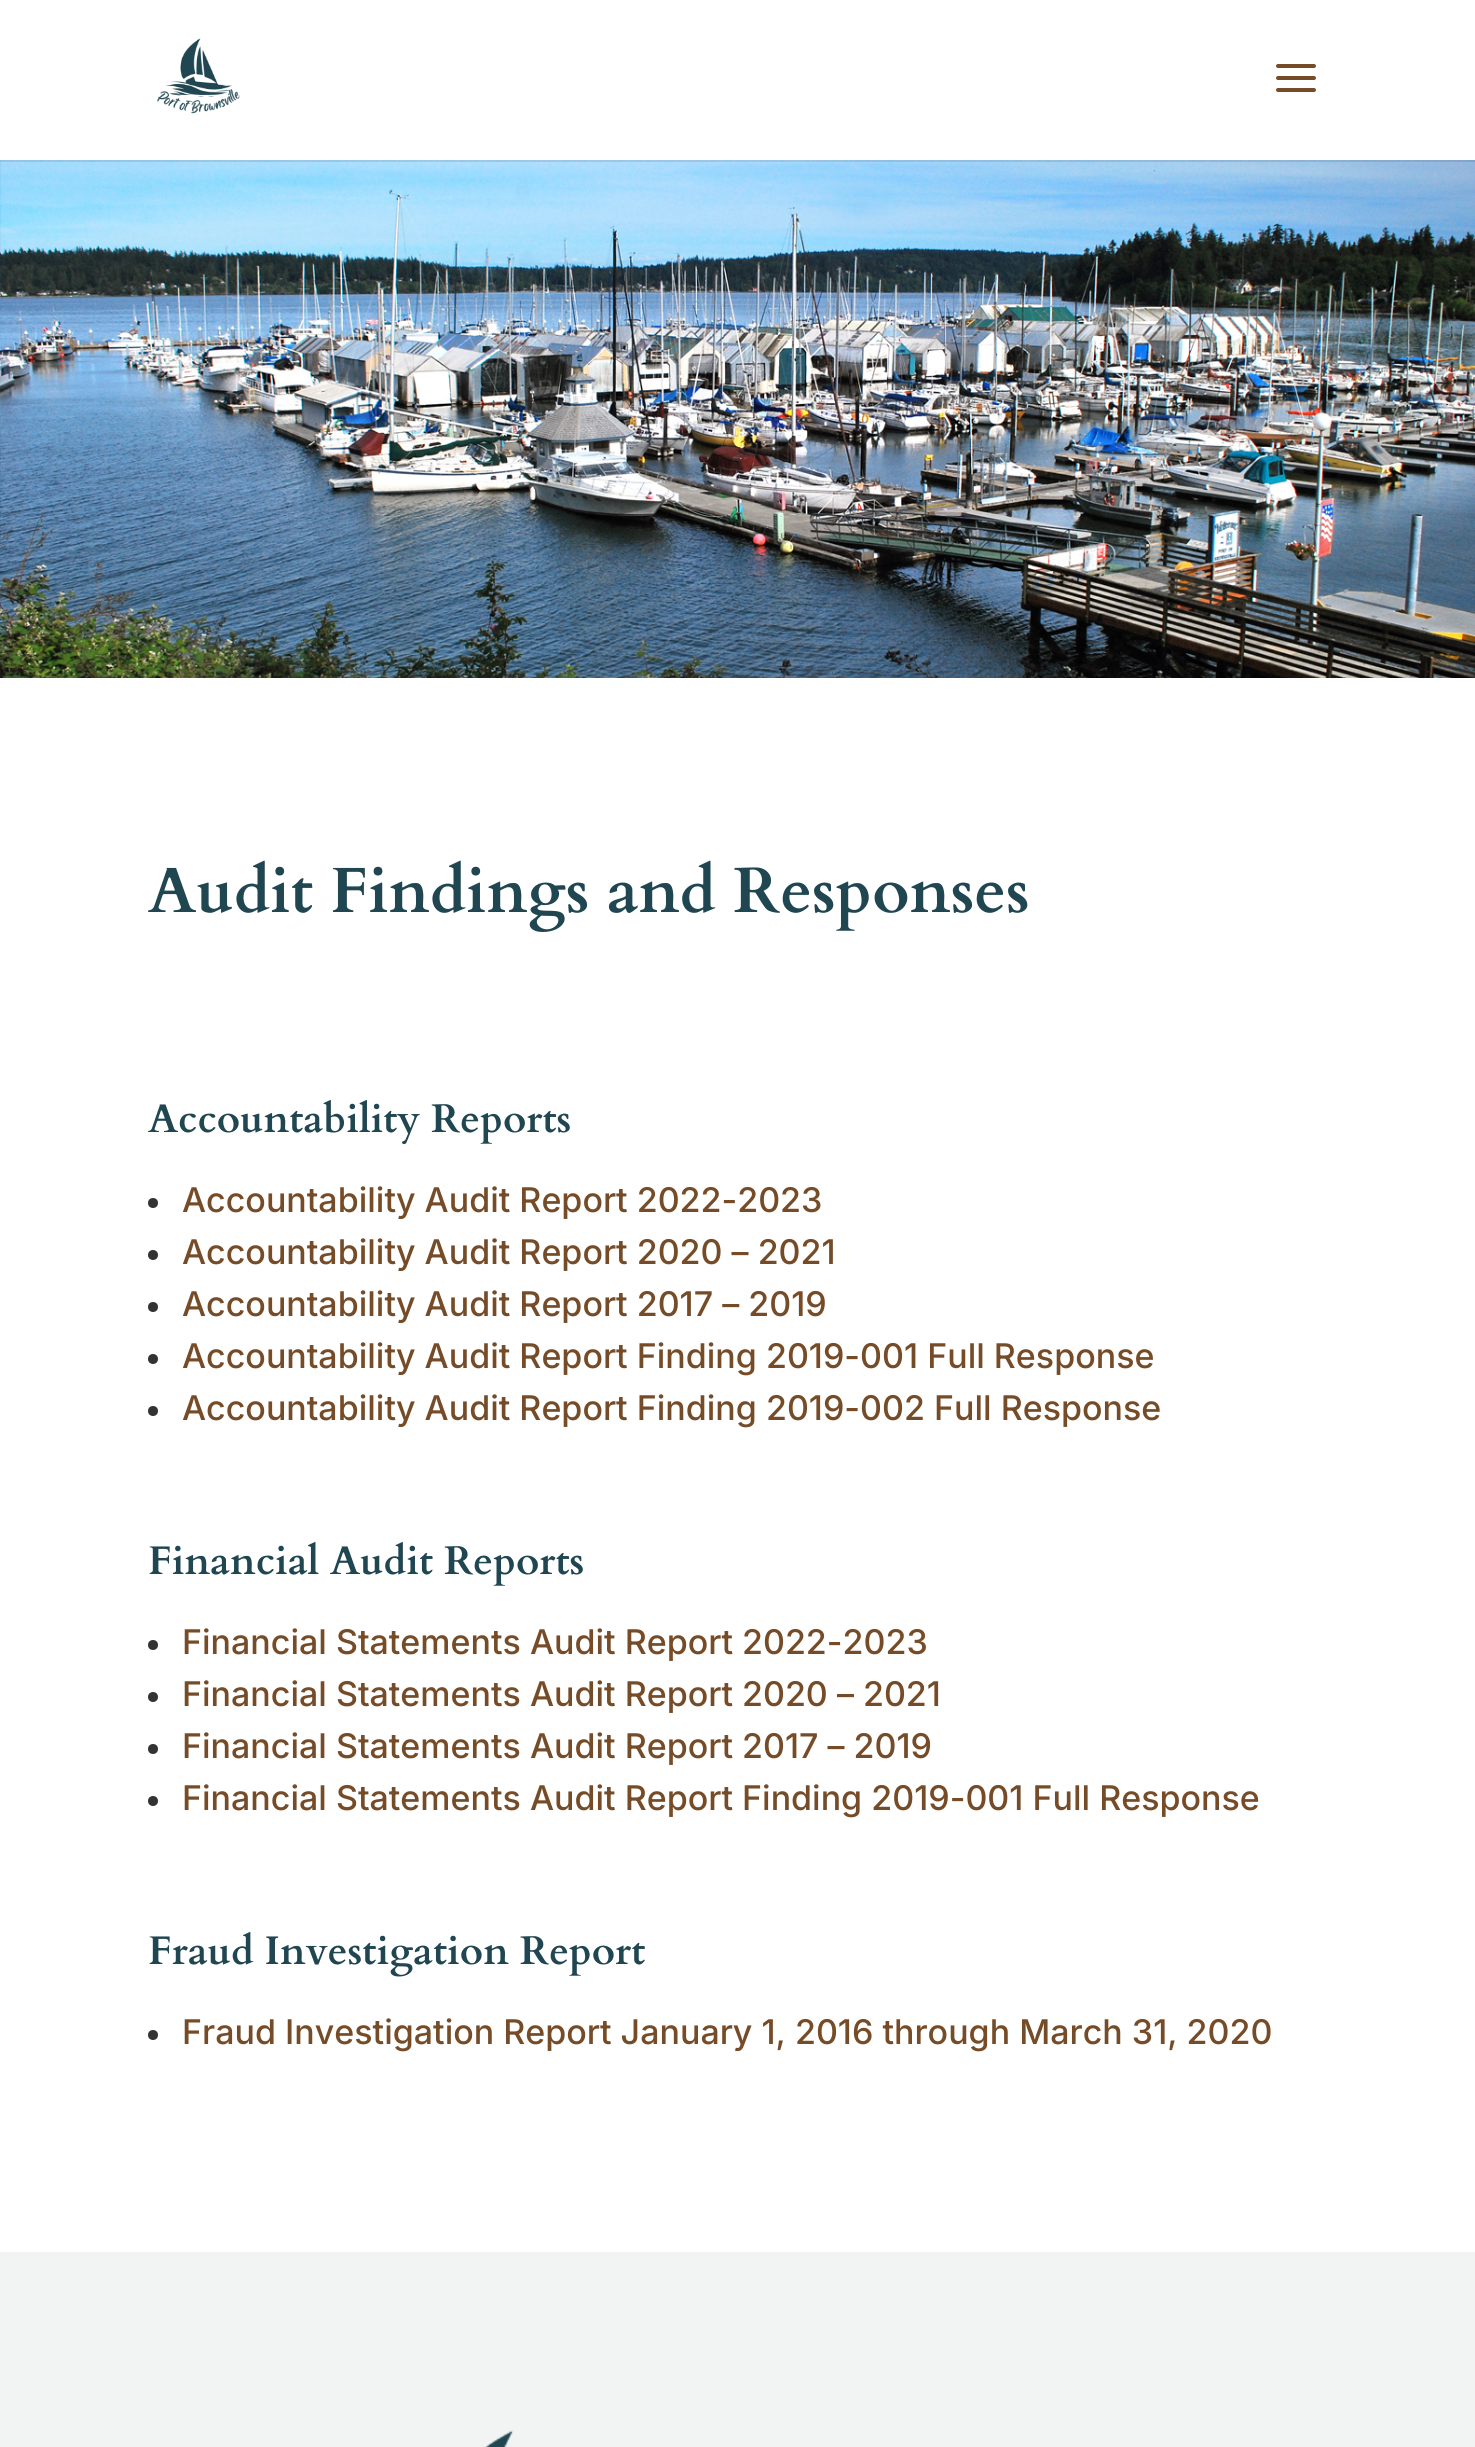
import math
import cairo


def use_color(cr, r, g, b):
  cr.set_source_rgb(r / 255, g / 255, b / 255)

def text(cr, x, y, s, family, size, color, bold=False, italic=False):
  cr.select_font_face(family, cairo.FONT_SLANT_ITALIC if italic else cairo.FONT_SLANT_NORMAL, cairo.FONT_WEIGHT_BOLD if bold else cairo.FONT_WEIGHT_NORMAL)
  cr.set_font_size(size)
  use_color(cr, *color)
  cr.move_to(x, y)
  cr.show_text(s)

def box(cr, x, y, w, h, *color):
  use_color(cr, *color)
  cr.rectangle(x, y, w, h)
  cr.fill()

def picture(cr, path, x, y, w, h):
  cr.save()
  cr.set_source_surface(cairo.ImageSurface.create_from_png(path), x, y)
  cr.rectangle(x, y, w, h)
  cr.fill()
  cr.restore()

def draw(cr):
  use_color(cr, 255, 255, 255)
  cr.paint()
  picture(cr, "img_03.png", 0, 160, 1475, 518)
  cr.set_source_rgba(0, 0, 0, 0.1)
  cr.rectangle(0, 160, 1475, 2)
  cr.fill()
  picture(cr, "img_01.png", 157, 38, 83, 76)
  picture(cr, "img_02.png", 1276, 64, 40, 28)
  use_color(cr, 51, 51, 51)
  cr.arc(153, 1203, 5, 0, 2 * math.pi)
  cr.fill()
  cr.arc(153, 1255, 5, 0, 2 * math.pi)
  cr.fill()
  cr.arc(153, 1307, 5, 0, 2 * math.pi)
  cr.fill()
  cr.arc(153, 1359, 5, 0, 2 * math.pi)
  cr.fill()
  cr.arc(153, 1411, 5, 0, 2 * math.pi)
  cr.fill()
  cr.arc(153, 1645, 5, 0, 2 * math.pi)
  cr.fill()
  cr.arc(153, 1697, 5, 0, 2 * math.pi)
  cr.fill()
  cr.arc(153, 1749, 5, 0, 2 * math.pi)
  cr.fill()
  cr.arc(153, 1801, 5, 0, 2 * math.pi)
  cr.fill()
  cr.arc(153, 2035, 5, 0, 2 * math.pi)
  cr.fill()
  box(cr, 0, 2252, 1475, 195, 241, 244, 243)
  picture(cr, "img_04.png", 485, 2430, 29, 17)
  text(cr, 148, 912, "Audit Findings and Responses", "Cardo", 64, (32, 70, 82), bold=True)
  text(cr, 148, 1132, "Accountability Reports", "Cardo", 40, (32, 70, 82), bold=True)
  text(cr, 182, 1212, "Accountability Audit Report 2022-2023", "Inter Medium", 34, (118, 76, 40))
  text(cr, 182, 1264, "Accountability Audit Report 2020 – 2021", "Inter Medium", 34, (118, 76, 40))
  text(cr, 182, 1316, "Accountability Audit Report 2017 – 2019", "Inter Medium", 34, (118, 76, 40))
  text(cr, 182, 1368, "Accountability Audit Report Finding 2019-001 Full Response", "Inter Medium", 34, (118, 76, 40))
  text(cr, 182, 1420, "Accountability Audit Report Finding 2019-002 Full Response", "Inter Medium", 34, (118, 76, 40))
  text(cr, 148, 1574, "Financial Audit Reports", "Cardo", 40, (32, 70, 82), bold=True)
  text(cr, 182, 1654, "Financial Statements Audit Report 2022-2023", "Inter Medium", 34, (118, 76, 40))
  text(cr, 182, 1706, "Financial Statements Audit Report 2020 – 2021", "Inter Medium", 34, (118, 76, 40))
  text(cr, 182, 1758, "Financial Statements Audit Report 2017 – 2019", "Inter Medium", 34, (118, 76, 40))
  text(cr, 182, 1810, "Financial Statements Audit Report Finding 2019-001 Full Response", "Inter Medium", 34, (118, 76, 40))
  text(cr, 148, 1964, "Fraud Investigation Report", "Cardo", 40, (32, 70, 82), bold=True)
  text(cr, 182, 2044, "Fraud Investigation Report January 1, 2016 through March 31, 2020", "Inter Medium", 34, (118, 76, 40))


surface = cairo.ImageSurface(cairo.FORMAT_RGB24, 1475, 2447)
cr = cairo.Context(surface)
options = cairo.FontOptions()
options.set_hint_metrics(cairo.HINT_METRICS_OFF)
options.set_hint_style(cairo.HINT_STYLE_NONE)
cr.set_font_options(options)
cr.set_miter_limit(4)
draw(cr)
surface.write_to_png("out.png")
